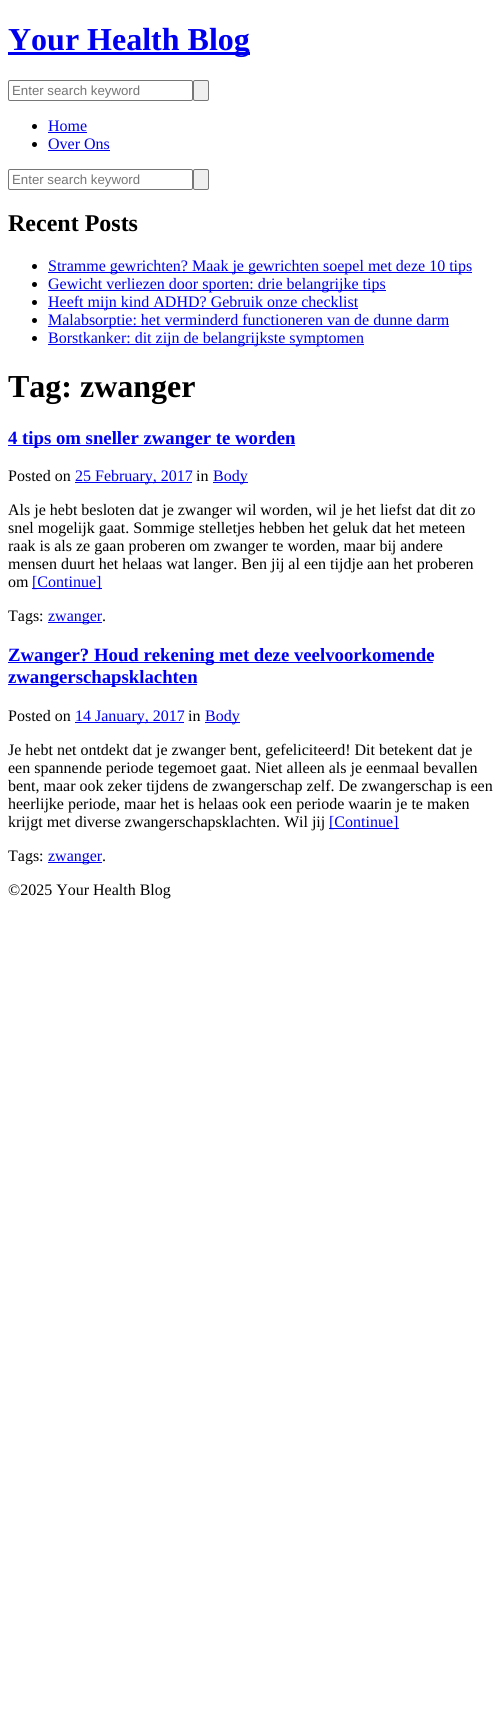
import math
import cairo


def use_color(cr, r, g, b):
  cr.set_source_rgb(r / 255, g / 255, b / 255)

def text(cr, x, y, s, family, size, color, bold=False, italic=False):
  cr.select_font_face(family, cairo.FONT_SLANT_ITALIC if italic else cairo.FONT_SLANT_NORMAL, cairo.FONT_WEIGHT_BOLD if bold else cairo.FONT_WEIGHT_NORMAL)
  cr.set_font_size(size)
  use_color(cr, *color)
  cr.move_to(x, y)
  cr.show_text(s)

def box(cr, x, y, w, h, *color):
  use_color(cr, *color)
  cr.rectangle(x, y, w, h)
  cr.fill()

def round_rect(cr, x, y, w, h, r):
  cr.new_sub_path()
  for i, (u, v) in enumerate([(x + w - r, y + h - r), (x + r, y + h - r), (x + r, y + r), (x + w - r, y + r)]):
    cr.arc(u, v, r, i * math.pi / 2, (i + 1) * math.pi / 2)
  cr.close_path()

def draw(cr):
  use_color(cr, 255, 255, 255)
  cr.paint()
  box(cr, 8, 52, 242, 3, 0, 0, 238)
  round_rect(cr, 8.5, 80.5, 184, 20, 1.5)
  use_color(cr, 118, 118, 118)
  cr.set_line_width(1)
  cr.stroke()
  use_color(cr, 239, 239, 239)
  round_rect(cr, 193.5, 80.5, 15, 20, 1.5)
  cr.fill_preserve()
  use_color(cr, 118, 118, 118)
  cr.stroke()
  use_color(cr, 0, 0, 0)
  cr.arc(34.5, 126.5, 2.5, 0, 2 * math.pi)
  cr.fill()
  box(cr, 48, 132, 39, 1, 0, 0, 238)
  use_color(cr, 0, 0, 0)
  cr.arc(34.5, 144.5, 2.5, 0, 2 * math.pi)
  cr.fill()
  box(cr, 48, 150, 62, 1, 0, 0, 238)
  round_rect(cr, 8.5, 169.5, 184, 20, 1.5)
  use_color(cr, 118, 118, 118)
  cr.stroke()
  use_color(cr, 239, 239, 239)
  round_rect(cr, 193.5, 169.5, 15, 20, 1.5)
  cr.fill_preserve()
  use_color(cr, 118, 118, 118)
  cr.stroke()
  use_color(cr, 0, 0, 0)
  cr.arc(34.5, 266.5, 2.5, 0, 2 * math.pi)
  cr.fill()
  box(cr, 48, 272, 424, 1, 0, 0, 238)
  use_color(cr, 0, 0, 0)
  cr.arc(34.5, 284.5, 2.5, 0, 2 * math.pi)
  cr.fill()
  box(cr, 48, 290, 338, 1, 0, 0, 238)
  use_color(cr, 0, 0, 0)
  cr.arc(34.5, 302.5, 2.5, 0, 2 * math.pi)
  cr.fill()
  box(cr, 48, 308, 310, 1, 0, 0, 238)
  use_color(cr, 0, 0, 0)
  cr.arc(34.5, 320.5, 2.5, 0, 2 * math.pi)
  cr.fill()
  box(cr, 48, 326, 401, 1, 0, 0, 238)
  use_color(cr, 0, 0, 0)
  cr.arc(34.5, 338.5, 2.5, 0, 2 * math.pi)
  cr.fill()
  box(cr, 48, 344, 316, 1, 0, 0, 238)
  box(cr, 8, 445, 287, 1, 0, 0, 238)
  box(cr, 75, 482, 117, 1, 0, 0, 238)
  box(cr, 213, 482, 35, 1, 0, 0, 238)
  box(cr, 32, 588, 70, 1, 0, 0, 238)
  box(cr, 48, 622, 54, 1, 0, 0, 238)
  box(cr, 8, 662, 425, 1, 0, 0, 238)
  box(cr, 8, 684, 189, 1, 0, 0, 238)
  box(cr, 75, 722, 109, 1, 0, 0, 238)
  box(cr, 205, 722, 35, 1, 0, 0, 238)
  box(cr, 329, 828, 70, 1, 0, 0, 238)
  box(cr, 48, 862, 54, 1, 0, 0, 238)
  text(cr, 8, 50, "Your Health Blog", "Liberation Serif", 32, (0, 0, 238), bold=True)
  text(cr, 12, 95, "Enter search keyword", "Liberation Sans", 13.25, (117, 117, 117))
  text(cr, 48, 131, "Home", "Liberation Serif", 16, (0, 0, 238))
  text(cr, 48, 149, "Over Ons", "Liberation Serif", 16, (0, 0, 238))
  text(cr, 12, 184, "Enter search keyword", "Liberation Sans", 13.25, (117, 117, 117))
  text(cr, 8, 231, "Recent Posts", "Liberation Serif", 24, (0, 0, 0), bold=True)
  text(cr, 48, 271, "Stramme gewrichten? Maak je gewrichten soepel met deze 10 tips", "Liberation Serif", 16, (0, 0, 238))
  text(cr, 48, 289, "Gewicht verliezen door sporten: drie belangrijke tips", "Liberation Serif", 16, (0, 0, 238))
  text(cr, 48, 307, "Heeft mijn kind ADHD? Gebruik onze checklist", "Liberation Serif", 16, (0, 0, 238))
  text(cr, 48, 325, "Malabsorptie: het verminderd functioneren van de dunne darm", "Liberation Serif", 16, (0, 0, 238))
  text(cr, 48, 343, "Borstkanker: dit zijn de belangrijkste symptomen", "Liberation Serif", 16, (0, 0, 238))
  text(cr, 8, 397, "Tag: zwanger", "Liberation Serif", 32, (0, 0, 0), bold=True)
  text(cr, 8, 444, "4 tips om sneller zwanger te worden", "Liberation Serif", 18.75, (0, 0, 238), bold=True)
  text(cr, 8, 481, "Posted on", "Liberation Serif", 16, (0, 0, 0))
  text(cr, 75, 481, "25 February, 2017", "Liberation Serif", 16, (0, 0, 238))
  text(cr, 196, 481, "in", "Liberation Serif", 16, (0, 0, 0))
  text(cr, 213, 481, "Body", "Liberation Serif", 16, (0, 0, 238))
  text(cr, 8, 515, "Als je hebt besloten dat je zwanger wil worden, wil je het liefst dat dit zo", "Liberation Serif", 16, (0, 0, 0))
  text(cr, 8, 533, "snel mogelijk gaat. Sommige stelletjes hebben het geluk dat het meteen", "Liberation Serif", 16, (0, 0, 0))
  text(cr, 8, 551, "raak is als ze gaan proberen om zwanger te worden, maar bij andere", "Liberation Serif", 16, (0, 0, 0))
  text(cr, 8, 569, "mensen duurt het helaas wat langer. Ben jij al een tijdje aan het proberen", "Liberation Serif", 16, (0, 0, 0))
  text(cr, 8, 587, "om", "Liberation Serif", 16, (0, 0, 0))
  text(cr, 32, 587, "[Continue]", "Liberation Serif", 16, (0, 0, 238))
  text(cr, 8, 621, "Tags:", "Liberation Serif", 16, (0, 0, 0))
  text(cr, 48, 621, "zwanger", "Liberation Serif", 16, (0, 0, 238))
  text(cr, 102, 621, ".", "Liberation Serif", 16, (0, 0, 0))
  text(cr, 8, 661, "Zwanger? Houd rekening met deze veelvoorkomende", "Liberation Serif", 18.75, (0, 0, 238), bold=True)
  text(cr, 8, 683, "zwangerschapsklachten", "Liberation Serif", 18.75, (0, 0, 238), bold=True)
  text(cr, 8, 721, "Posted on", "Liberation Serif", 16, (0, 0, 0))
  text(cr, 75, 721, "14 January, 2017", "Liberation Serif", 16, (0, 0, 238))
  text(cr, 188, 721, "in", "Liberation Serif", 16, (0, 0, 0))
  text(cr, 205, 721, "Body", "Liberation Serif", 16, (0, 0, 238))
  text(cr, 8, 755, "Je hebt net ontdekt dat je zwanger bent, gefeliciteerd! Dit betekent dat je", "Liberation Serif", 16, (0, 0, 0))
  text(cr, 8, 773, "een spannende periode tegemoet gaat. Niet alleen als je eenmaal bevallen", "Liberation Serif", 16, (0, 0, 0))
  text(cr, 8, 791, "bent, maar ook zeker tijdens de zwangerschap zelf. De zwangerschap is een", "Liberation Serif", 16, (0, 0, 0))
  text(cr, 8, 809, "heerlijke periode, maar het is helaas ook een periode waarin je te maken", "Liberation Serif", 16, (0, 0, 0))
  text(cr, 8, 827, "krijgt met diverse zwangerschapsklachten. Wil jij", "Liberation Serif", 16, (0, 0, 0))
  text(cr, 329, 827, "[Continue]", "Liberation Serif", 16, (0, 0, 238))
  text(cr, 8, 861, "Tags:", "Liberation Serif", 16, (0, 0, 0))
  text(cr, 48, 861, "zwanger", "Liberation Serif", 16, (0, 0, 238))
  text(cr, 102, 861, ".", "Liberation Serif", 16, (0, 0, 0))
  text(cr, 8, 895, "©2025 Your Health Blog", "Liberation Serif", 16, (0, 0, 0))


surface = cairo.ImageSurface(cairo.FORMAT_RGB24, 501, 1716)
cr = cairo.Context(surface)
options = cairo.FontOptions()
options.set_hint_metrics(cairo.HINT_METRICS_OFF)
options.set_hint_style(cairo.HINT_STYLE_NONE)
cr.set_font_options(options)
cr.set_miter_limit(4)
draw(cr)
surface.write_to_png("out.png")
